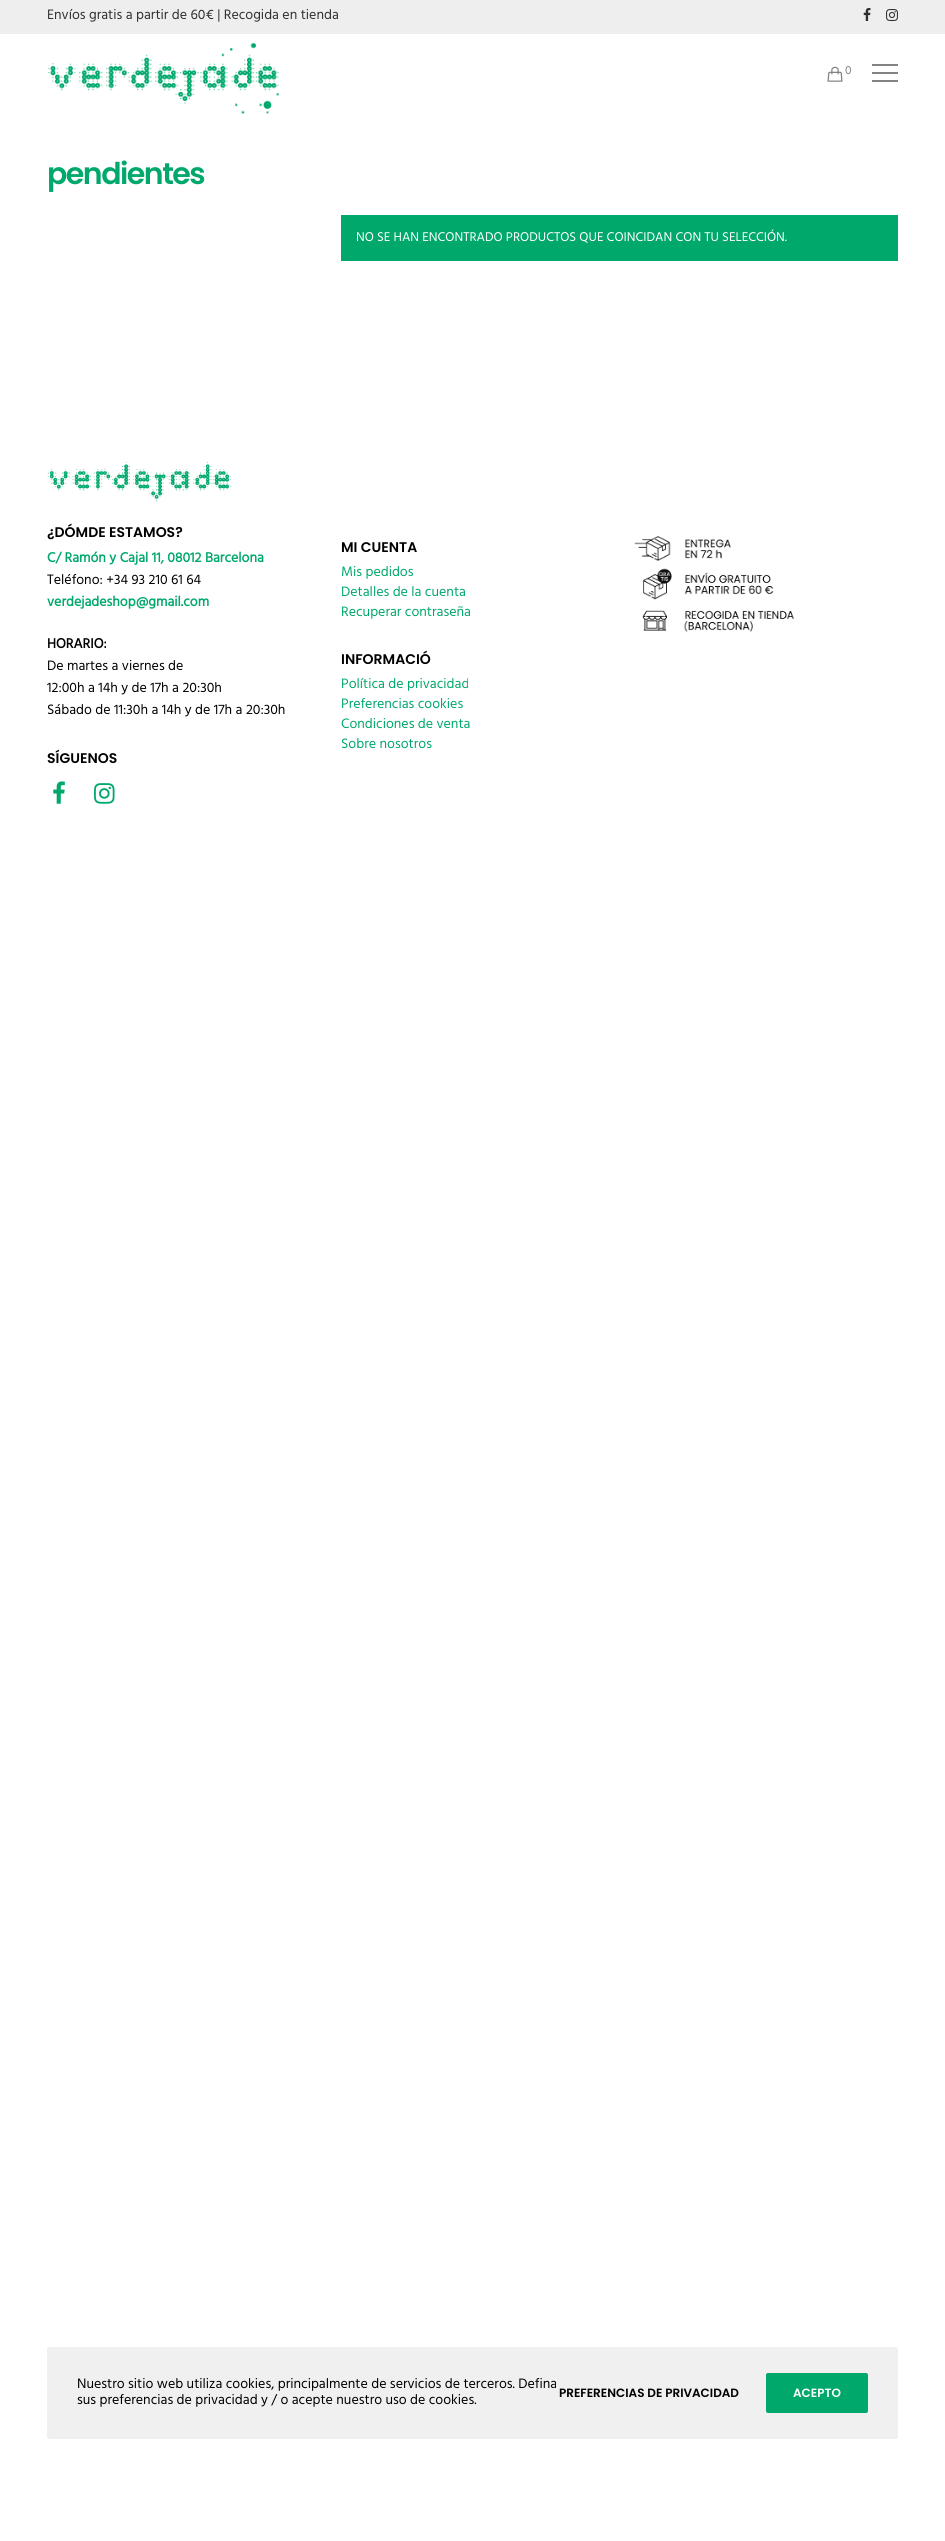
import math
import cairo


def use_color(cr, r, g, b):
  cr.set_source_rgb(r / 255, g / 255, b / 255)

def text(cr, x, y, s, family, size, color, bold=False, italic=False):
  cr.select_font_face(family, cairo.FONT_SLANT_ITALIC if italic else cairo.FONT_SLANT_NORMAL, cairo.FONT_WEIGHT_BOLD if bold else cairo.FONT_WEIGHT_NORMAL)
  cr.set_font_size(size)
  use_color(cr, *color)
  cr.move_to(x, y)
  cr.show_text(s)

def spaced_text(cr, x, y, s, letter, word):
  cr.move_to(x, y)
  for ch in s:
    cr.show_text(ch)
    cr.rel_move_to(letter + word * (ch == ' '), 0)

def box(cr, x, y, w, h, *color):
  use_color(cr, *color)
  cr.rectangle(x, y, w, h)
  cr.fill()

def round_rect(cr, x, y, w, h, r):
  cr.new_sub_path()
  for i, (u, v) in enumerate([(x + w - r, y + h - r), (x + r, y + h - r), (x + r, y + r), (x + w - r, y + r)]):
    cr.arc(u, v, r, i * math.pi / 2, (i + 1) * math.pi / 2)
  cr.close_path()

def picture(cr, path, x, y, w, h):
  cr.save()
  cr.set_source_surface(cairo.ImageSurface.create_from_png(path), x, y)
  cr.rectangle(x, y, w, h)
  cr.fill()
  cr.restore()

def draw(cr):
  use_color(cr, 255, 255, 255)
  cr.paint()
  box(cr, 0, 0, 945, 34, 238, 238, 238)
  picture(cr, "img_01.png", 863, 8, 8, 13)
  picture(cr, "img_02.png", 886, 9, 12, 12)
  picture(cr, "img_03.png", 48, 42, 232, 72)
  picture(cr, "img_04.png", 827, 66, 16, 16)
  box(cr, 872, 64, 26, 2, 131, 131, 131)
  box(cr, 872, 72, 26, 2, 131, 131, 131)
  box(cr, 872, 80, 26, 2, 131, 131, 131)
  box(cr, 341, 215, 557, 46, 0, 168, 107)
  picture(cr, "img_05.png", 47, 462, 185, 39)
  picture(cr, "img_06.png", 53, 781, 12, 23)
  picture(cr, "img_07.png", 94, 783, 21, 21)
  picture(cr, "img_08.png", 634, 536, 97, 25)
  picture(cr, "img_09.png", 643, 568, 131, 32)
  picture(cr, "img_10.png", 642, 610, 152, 22)
  use_color(cr, 240, 240, 240)
  round_rect(cr, 47, 2347, 851, 92, 2)
  cr.fill()
  use_color(cr, 0, 168, 107)
  round_rect(cr, 766, 2373, 102, 40, 2)
  cr.fill()
  text(cr, 47, 19, "Envíos gratis a partir de 60€ | Recogida en tienda", "Hind", 14, (48, 48, 48))
  text(cr, 845, 74, "0", "Hind", 12, (131, 131, 131))
  cr.select_font_face("Poppins SemiBold")
  cr.set_font_size(30)
  use_color(cr, 0, 168, 107)
  spaced_text(cr, 47, 184, "pendientes", -1.5, 0)
  text(cr, 356, 241, "NO SE HAN ENCONTRADO PRODUCTOS QUE COINCIDAN CON TU SELECCIÓN.", "Hind", 13, (255, 255, 255))
  text(cr, 47, 537, "¿DÓMDE ESTAMOS?", "Poppins SemiBold", 14, (0, 0, 0))
  text(cr, 47, 562, "C/ Ramón y Cajal 11, 08012 Barcelona", "Hind", 14, (0, 168, 107), bold=True)
  text(cr, 47, 584, "Teléfono: +34 93 210 61 64", "Hind", 14, (0, 0, 0))
  text(cr, 47, 606, "verdejadeshop@gmail.com", "Hind", 14, (0, 168, 107), bold=True)
  text(cr, 47, 648, "HORARIO:", "Hind", 14, (0, 0, 0), bold=True)
  text(cr, 47, 670, "De martes a viernes de", "Hind", 14, (0, 0, 0))
  text(cr, 47, 692, "12:00h a 14h y de 17h a 20:30h", "Hind", 14, (0, 0, 0))
  text(cr, 47, 714, "Sábado de 11:30h a 14h y de 17h a 20:30h", "Hind", 14, (0, 0, 0))
  text(cr, 47, 763, "SÍGUENOS", "Poppins SemiBold", 14, (0, 0, 0))
  text(cr, 341, 552, "MI CUENTA", "Poppins SemiBold", 14, (0, 0, 0))
  text(cr, 341, 576, "Mis pedidos", "Hind", 14, (0, 168, 107))
  text(cr, 341, 596, "Detalles de la cuenta", "Hind", 14, (0, 168, 107))
  text(cr, 341, 616, "Recuperar contraseña", "Hind", 14, (0, 168, 107))
  text(cr, 341, 664, "INFORMACIÓ", "Poppins SemiBold", 14, (0, 0, 0))
  text(cr, 341, 688, "Política de privacidad", "Hind", 14, (0, 168, 107))
  text(cr, 341, 708, "Preferencias cookies", "Hind", 14, (0, 168, 107))
  text(cr, 341, 728, "Condiciones de venta", "Hind", 14, (0, 168, 107))
  text(cr, 341, 748, "Sobre nosotros", "Hind", 14, (0, 168, 107))
  text(cr, 77, 2388, "Nuestro sitio web utiliza cookies, principalmente de servicios de terceros. Defina", "Hind", 14, (0, 0, 0))
  text(cr, 77, 2404, "sus preferencias de privacidad y / o acepte nuestro uso de cookies.", "Hind", 14, (0, 0, 0))
  text(cr, 559, 2397, "PREFERENCIAS DE PRIVACIDAD", "Poppins SemiBold", 12, (0, 0, 0))
  text(cr, 793, 2397, "ACEPTO", "Poppins SemiBold", 12, (255, 255, 255))


surface = cairo.ImageSurface(cairo.FORMAT_RGB24, 945, 2541)
cr = cairo.Context(surface)
options = cairo.FontOptions()
options.set_hint_metrics(cairo.HINT_METRICS_OFF)
options.set_hint_style(cairo.HINT_STYLE_NONE)
cr.set_font_options(options)
cr.set_miter_limit(4)
draw(cr)
surface.write_to_png("out.png")
